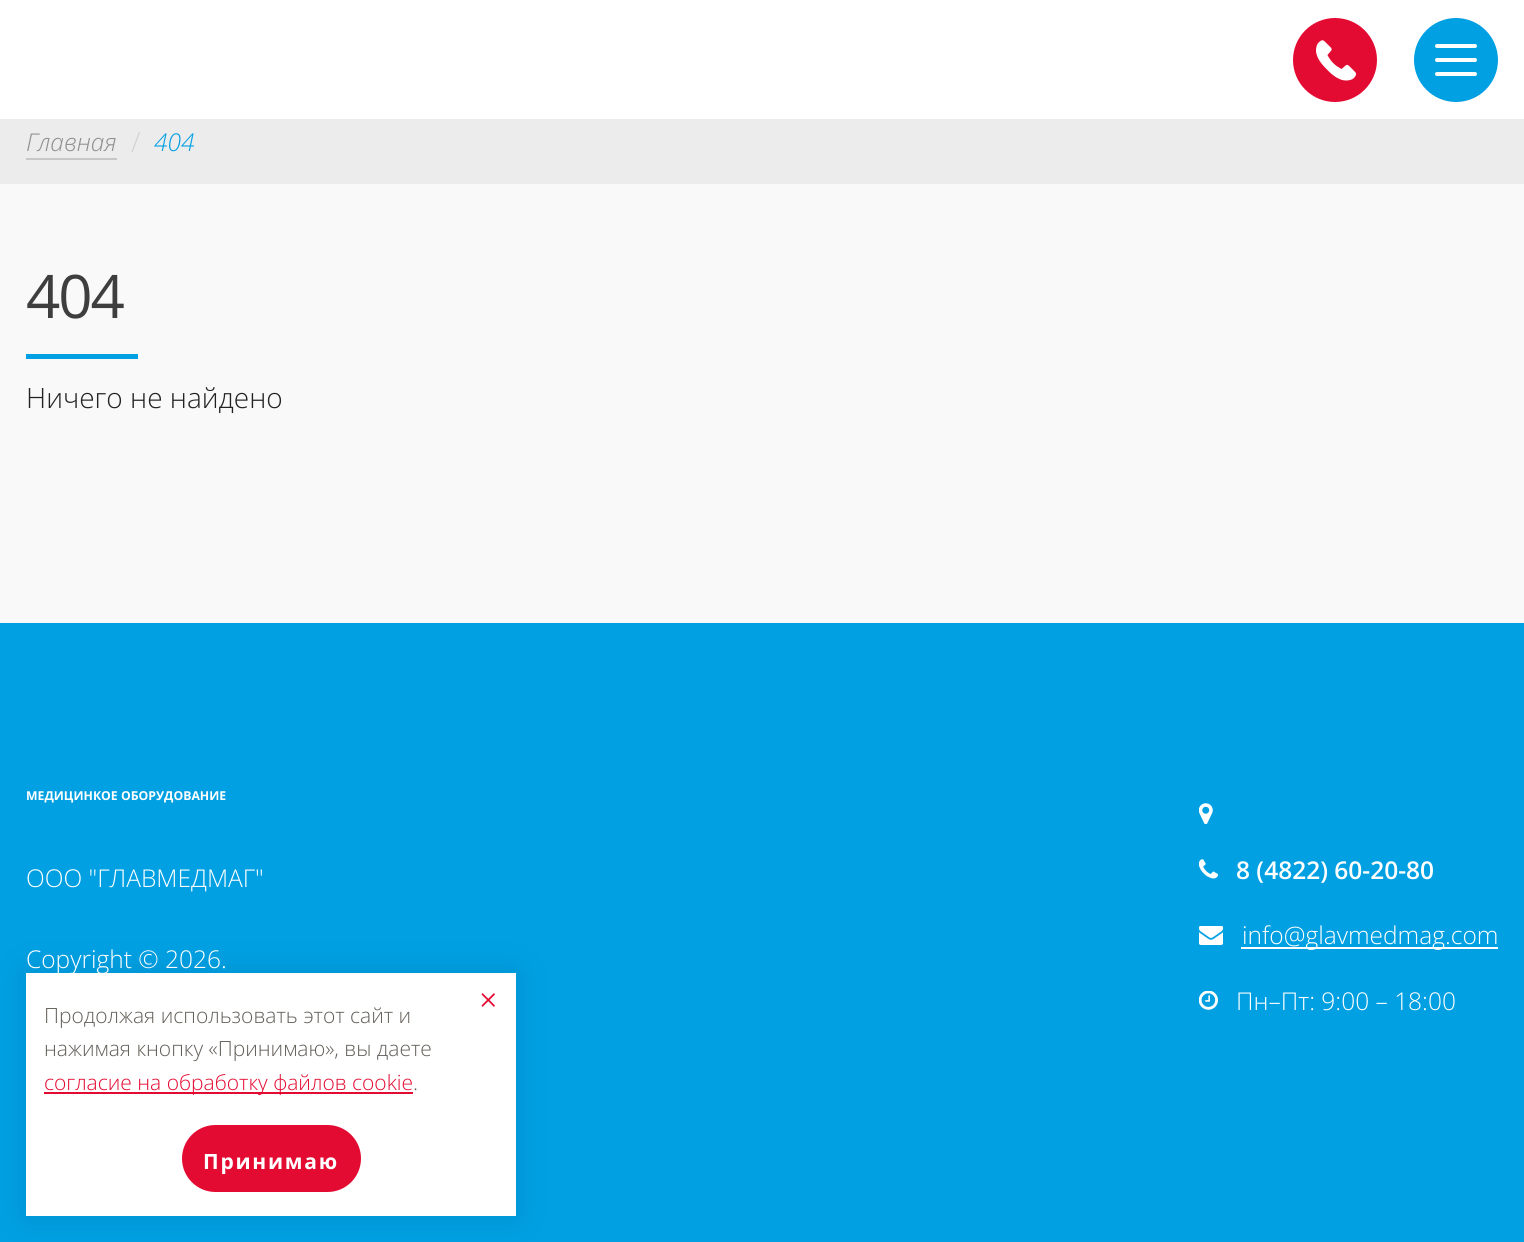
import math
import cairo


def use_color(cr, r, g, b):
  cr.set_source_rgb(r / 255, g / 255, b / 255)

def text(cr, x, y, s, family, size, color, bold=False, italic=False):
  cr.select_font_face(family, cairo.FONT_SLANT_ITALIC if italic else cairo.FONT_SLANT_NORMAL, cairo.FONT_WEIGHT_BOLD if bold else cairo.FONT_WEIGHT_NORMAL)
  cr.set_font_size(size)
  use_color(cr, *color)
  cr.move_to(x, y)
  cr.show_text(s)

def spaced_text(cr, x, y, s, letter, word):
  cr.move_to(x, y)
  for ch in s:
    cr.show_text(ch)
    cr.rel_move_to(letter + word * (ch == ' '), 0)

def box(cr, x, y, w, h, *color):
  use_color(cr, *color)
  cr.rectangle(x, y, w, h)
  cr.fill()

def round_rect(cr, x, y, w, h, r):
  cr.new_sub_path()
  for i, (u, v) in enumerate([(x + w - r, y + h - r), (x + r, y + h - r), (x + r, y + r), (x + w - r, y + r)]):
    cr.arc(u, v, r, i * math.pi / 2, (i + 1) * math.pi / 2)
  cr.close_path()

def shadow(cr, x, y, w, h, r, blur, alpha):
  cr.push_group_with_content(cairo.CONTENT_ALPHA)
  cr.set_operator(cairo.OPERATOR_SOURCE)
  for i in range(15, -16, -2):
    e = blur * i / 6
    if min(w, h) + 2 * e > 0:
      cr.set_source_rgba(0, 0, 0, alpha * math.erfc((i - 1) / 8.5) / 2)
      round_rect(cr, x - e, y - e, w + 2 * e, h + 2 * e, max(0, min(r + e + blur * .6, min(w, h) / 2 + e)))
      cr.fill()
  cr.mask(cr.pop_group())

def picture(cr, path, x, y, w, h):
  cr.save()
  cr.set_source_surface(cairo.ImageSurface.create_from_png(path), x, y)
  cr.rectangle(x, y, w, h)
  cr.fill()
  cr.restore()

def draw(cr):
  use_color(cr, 249, 249, 249)
  cr.paint()
  box(cr, 0, 0, 1524, 119, 255, 255, 255)
  use_color(cr, 228, 11, 50)
  cr.arc(1335, 60, 42, 0, 2 * math.pi)
  cr.fill()
  picture(cr, "img_01.png", 1316, 40, 40, 41)
  use_color(cr, 0, 160, 227)
  cr.arc(1456, 60, 42, 0, 2 * math.pi)
  cr.fill()
  use_color(cr, 255, 255, 255)
  round_rect(cr, 1435, 58, 42, 4, 2)
  cr.fill()
  round_rect(cr, 1435, 44, 42, 4, 2)
  cr.fill()
  round_rect(cr, 1435, 72, 42, 4, 2)
  cr.fill()
  box(cr, 0, 119, 1524, 65, 236, 236, 236)
  box(cr, 26, 158, 91, 2, 199, 199, 199)
  box(cr, 26, 354, 112, 5, 0, 160, 227)
  box(cr, 0, 623, 1524, 619, 0, 160, 227)
  picture(cr, "img_02.png", 1199, 803, 14, 21)
  picture(cr, "img_03.png", 1199, 859, 19, 20)
  picture(cr, "img_04.png", 1199, 926, 24, 19)
  box(cr, 1241, 947, 257, 2, 255, 255, 255)
  picture(cr, "img_05.png", 1199, 991, 19, 19)
  use_color(cr, 0, 0, 0)
  shadow(cr, 26, 973, 490, 243, 0, 17.5, 0.1)
  box(cr, 26, 973, 490, 243, 255, 255, 255)
  use_color(cr, 228, 11, 50)
  cr.new_path()
  cr.move_to(482.5, 993)
  cr.line_to(495, 1005.5)
  cr.line_to(494, 1007)
  cr.line_to(481.5, 994.5)
  cr.close_path()
  cr.fill()
  cr.new_path()
  cr.move_to(481.5, 1005.5)
  cr.line_to(494, 993)
  cr.line_to(495, 994.5)
  cr.line_to(482.5, 1007)
  cr.close_path()
  cr.fill()
  box(cr, 44, 1092, 369, 2, 228, 11, 50)
  round_rect(cr, 182, 1125, 179, 67, 33.5)
  cr.fill()
  text(cr, 26, 151, "Главная", "Open Sans Light", 24.5, (143, 143, 143), italic=True)
  text(cr, 131, 152, "/", "Open Sans Light", 28, (212, 212, 212))
  text(cr, 154, 151, "404", "Open Sans Light", 24.5, (0, 160, 227), italic=True)
  cr.select_font_face("Open Sans")
  cr.set_font_size(60)
  use_color(cr, 62, 62, 62)
  spaced_text(cr, 26, 318, "404", -2, 0)
  text(cr, 26, 408, "Ничего не найдено", "Open Sans Light", 28, (34, 34, 34))
  text(cr, 26, 800, "МЕДИЦИНКОЕ ОБОРУДОВАНИЕ", "Open Sans", 12.25, (255, 255, 255), bold=True)
  text(cr, 26, 887, "ООО \"ГЛАВМЕДМАГ\"", "Open Sans Light", 24.5, (255, 255, 255))
  text(cr, 26, 968, "Copyright © 2026.", "Open Sans Light", 24.5, (255, 255, 255))
  text(cr, 1236, 879, "8 (4822) 60-20-80", "Open Sans SemiBold", 24.5, (255, 255, 255))
  text(cr, 1242, 944, "info@glavmedmag.com", "Open Sans Light", 24.5, (255, 255, 255))
  text(cr, 1236, 1010, "Пн–Пт: 9:00 – 18:00", "Open Sans Light", 24.5, (255, 255, 255))
  text(cr, 44, 1023, "Продолжая использовать этот сайт и", "Open Sans Light", 21, (99, 95, 89))
  text(cr, 44, 1056, "нажимая кнопку «Принимаю», вы даете", "Open Sans Light", 21, (99, 95, 89))
  text(cr, 44, 1090, "согласие на обработку файлов cookie", "Open Sans Light", 21, (228, 11, 50))
  text(cr, 413, 1090, ".", "Open Sans Light", 21, (99, 95, 89))
  cr.select_font_face("Open Sans", cairo.FONT_SLANT_NORMAL, cairo.FONT_WEIGHT_BOLD)
  use_color(cr, 255, 255, 255)
  spaced_text(cr, 203, 1169, "Принимаю", 1.75, 0)


surface = cairo.ImageSurface(cairo.FORMAT_RGB24, 1524, 1242)
cr = cairo.Context(surface)
options = cairo.FontOptions()
options.set_hint_metrics(cairo.HINT_METRICS_OFF)
options.set_hint_style(cairo.HINT_STYLE_NONE)
cr.set_font_options(options)
cr.set_miter_limit(4)
draw(cr)
surface.write_to_png("out.png")
